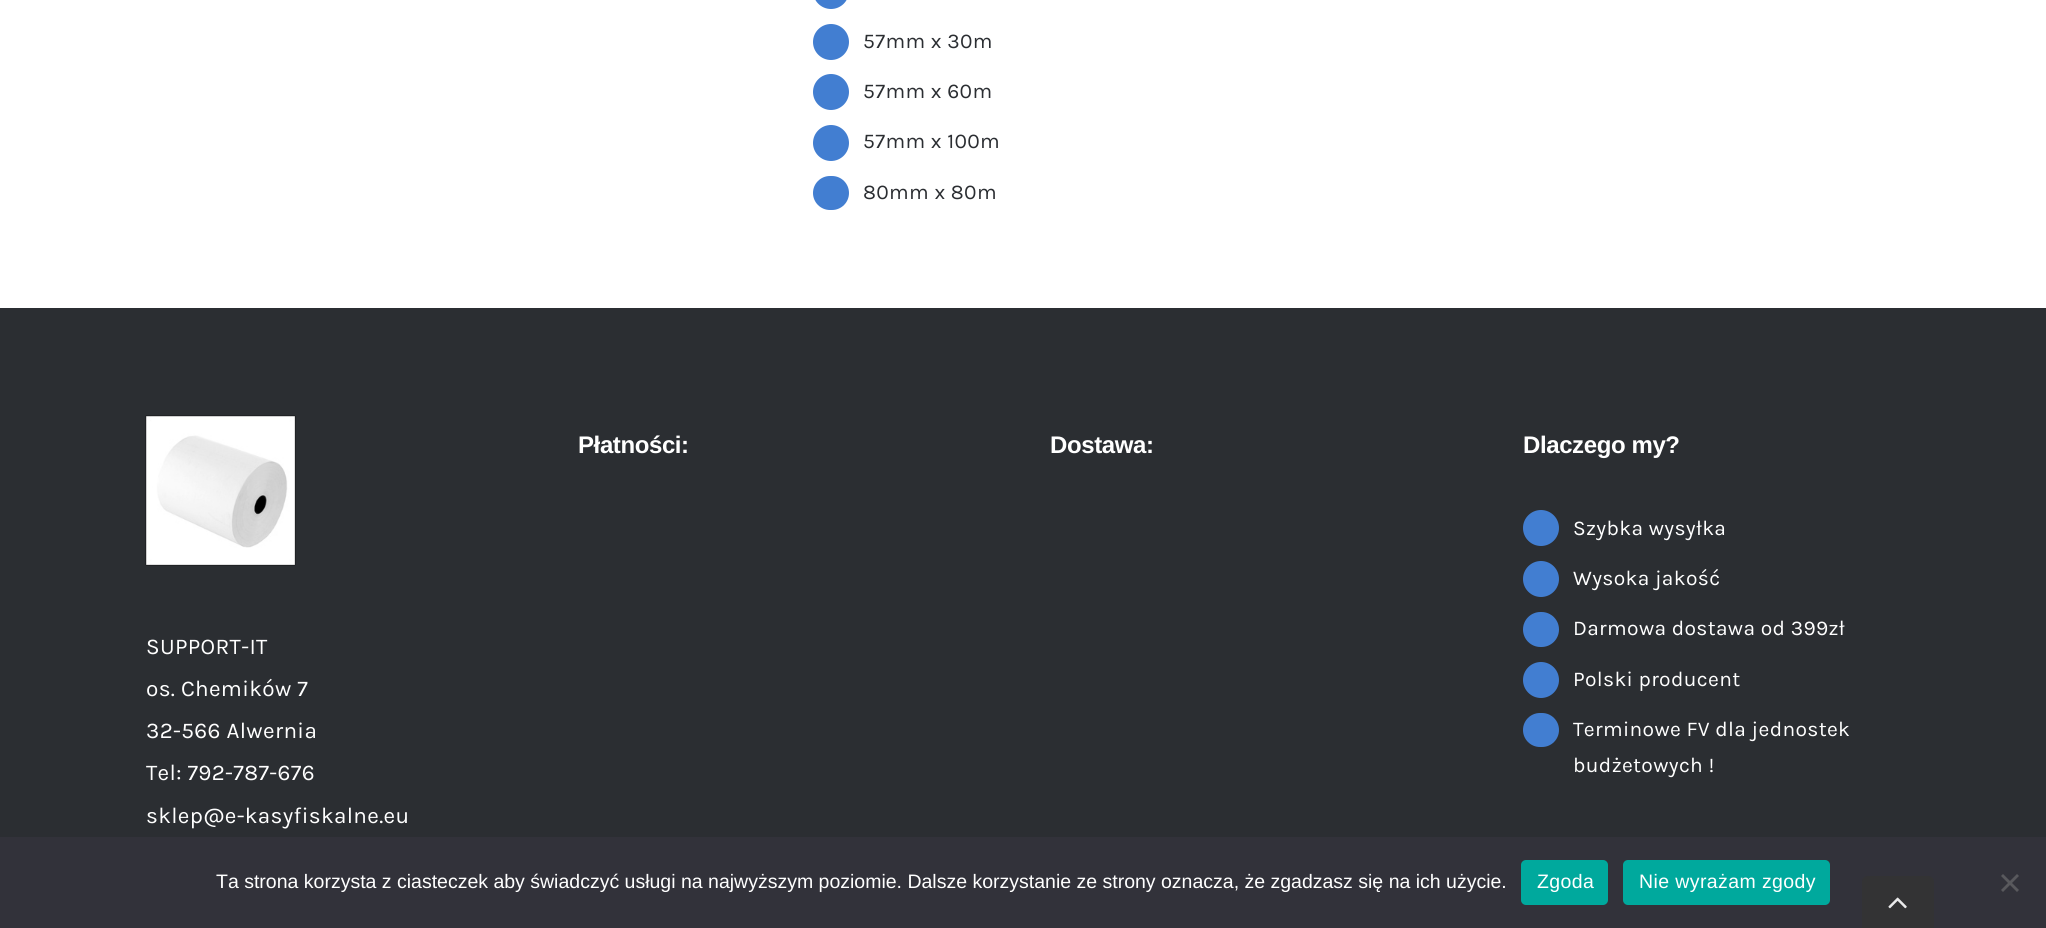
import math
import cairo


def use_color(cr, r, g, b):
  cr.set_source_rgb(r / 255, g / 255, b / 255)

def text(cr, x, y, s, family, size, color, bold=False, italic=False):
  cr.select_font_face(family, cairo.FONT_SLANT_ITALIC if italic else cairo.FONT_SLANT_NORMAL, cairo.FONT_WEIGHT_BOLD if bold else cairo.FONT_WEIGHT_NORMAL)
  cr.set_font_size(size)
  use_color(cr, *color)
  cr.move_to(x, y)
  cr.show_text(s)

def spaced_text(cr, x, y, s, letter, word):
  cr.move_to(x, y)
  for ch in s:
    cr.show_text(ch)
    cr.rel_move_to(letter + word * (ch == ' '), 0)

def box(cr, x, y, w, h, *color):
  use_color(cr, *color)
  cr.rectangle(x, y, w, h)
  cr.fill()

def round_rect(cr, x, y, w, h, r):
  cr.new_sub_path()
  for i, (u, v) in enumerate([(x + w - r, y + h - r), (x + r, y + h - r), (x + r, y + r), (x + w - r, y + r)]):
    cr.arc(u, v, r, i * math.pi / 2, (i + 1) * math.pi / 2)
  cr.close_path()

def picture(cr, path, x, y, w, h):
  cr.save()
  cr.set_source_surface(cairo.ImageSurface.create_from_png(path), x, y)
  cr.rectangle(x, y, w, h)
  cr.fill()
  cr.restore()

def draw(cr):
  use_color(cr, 255, 255, 255)
  cr.paint()
  use_color(cr, 66, 126, 209)
  round_rect(cr, 813, -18, 36, 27, 18)
  cr.fill()
  cr.arc(831, 42, 18, 0, 2 * math.pi)
  cr.fill()
  cr.arc(831, 92, 18, 0, 2 * math.pi)
  cr.fill()
  cr.arc(831, 143, 18, 0, 2 * math.pi)
  cr.fill()
  round_rect(cr, 813, 176, 36, 34, 17)
  cr.fill()
  box(cr, 0, 308, 2046, 529, 43, 46, 50)
  use_color(cr, 66, 126, 209)
  cr.arc(1541, 528, 18, 0, 2 * math.pi)
  cr.fill()
  cr.arc(1541, 579, 18, 0, 2 * math.pi)
  cr.fill()
  round_rect(cr, 1523, 612, 36, 35, 17.5)
  cr.fill()
  cr.arc(1541, 680, 18, 0, 2 * math.pi)
  cr.fill()
  round_rect(cr, 1523, 713, 36, 34, 17)
  cr.fill()
  picture(cr, "img_01.png", 145, 415, 151, 151)
  box(cr, 0, 837, 2046, 91, 50, 50, 58)
  use_color(cr, 0, 169, 157)
  round_rect(cr, 1521, 860, 87, 45, 5)
  cr.fill()
  round_rect(cr, 1623, 860, 207, 45, 5)
  cr.fill()
  use_color(cr, 89, 89, 93)
  cr.new_path()
  cr.move_to(2017, 874)
  cr.line_to(2019, 876)
  cr.line_to(2003, 892)
  cr.line_to(2001, 890)
  cr.close_path()
  cr.fill()
  cr.new_path()
  cr.move_to(2001, 876)
  cr.line_to(2003, 874)
  cr.line_to(2019, 890)
  cr.line_to(2017, 892)
  cr.close_path()
  cr.fill()
  use_color(cr, 51, 51, 52)
  cr.new_path()
  cr.move_to(1868, 876)
  cr.line_to(1928, 876)
  cr.curve_to(1931.5, 876, 1934, 878.5, 1934, 882)
  cr.line_to(1934, 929)
  cr.line_to(1862, 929)
  cr.line_to(1862, 882)
  cr.curve_to(1862, 878.5, 1864.5, 876, 1868, 876)
  cr.close_path()
  cr.fill()
  picture(cr, "img_02.png", 1888, 897, 19, 12)
  cr.select_font_face("Karla")
  cr.set_font_size(21)
  use_color(cr, 43, 46, 50)
  spaced_text(cr, 863, 48, "57mm x 30m", 0.35, 0)
  spaced_text(cr, 863, 98, "57mm x 60m", 0.35, 0)
  spaced_text(cr, 863, 148, "57mm x 100m", 0.35, 0)
  spaced_text(cr, 863, 199, "80mm x 80m", 0.35, 0)
  cr.select_font_face("Liberation Sans", cairo.FONT_SLANT_NORMAL, cairo.FONT_WEIGHT_BOLD)
  cr.set_font_size(24)
  use_color(cr, 255, 255, 255)
  spaced_text(cr, 578, 453, "Płatności:", -0.4, 0)
  spaced_text(cr, 1050, 453, "Dostawa:", -0.4, 0)
  spaced_text(cr, 1523, 453, "Dlaczego my?", -0.4, 0)
  cr.select_font_face("Karla")
  cr.set_font_size(21)
  spaced_text(cr, 1573, 535, "Szybka wysyłka", 0.35, 0)
  spaced_text(cr, 1573, 585, "Wysoka jakość", 0.35, 0)
  spaced_text(cr, 1573, 635, "Darmowa dostawa od 399zł", 0.35, 0)
  spaced_text(cr, 1573, 686, "Polski producent", 0.35, 0)
  spaced_text(cr, 1573, 736, "Terminowe FV dla jednostek", 0.35, 0)
  spaced_text(cr, 1573, 772, "budżetowych !", 0.35, 0)
  cr.set_font_size(22.5)
  spaced_text(cr, 146, 654, "SUPPORT-IT", 0.35, 0)
  spaced_text(cr, 146, 696, "os. Chemików 7", 0.35, 0)
  spaced_text(cr, 146, 738, "32-566 Alwernia", 0.35, 0)
  spaced_text(cr, 146, 780, "Tel: 792-787-676", 0.35, 0)
  spaced_text(cr, 146, 823, "sklep@e-kasyfiskalne.eu", 0.35, 0)
  text(cr, 216, 888, "Ta strona korzysta z ciasteczek aby świadczyć usługi na najwyższym poziomie. Dalsze korzystanie ze strony oznacza, że zgadzasz się na ich użycie.", "Liberation Sans", 19.5, (255, 255, 255))
  spaced_text(cr, 1537, 888, "Zgoda", 0.4, 0)
  spaced_text(cr, 1639, 888, "Nie wyrażam zgody", 0.4, 0)


surface = cairo.ImageSurface(cairo.FORMAT_RGB24, 2046, 928)
cr = cairo.Context(surface)
options = cairo.FontOptions()
options.set_hint_metrics(cairo.HINT_METRICS_OFF)
options.set_hint_style(cairo.HINT_STYLE_NONE)
cr.set_font_options(options)
cr.set_miter_limit(4)
draw(cr)
surface.write_to_png("out.png")
